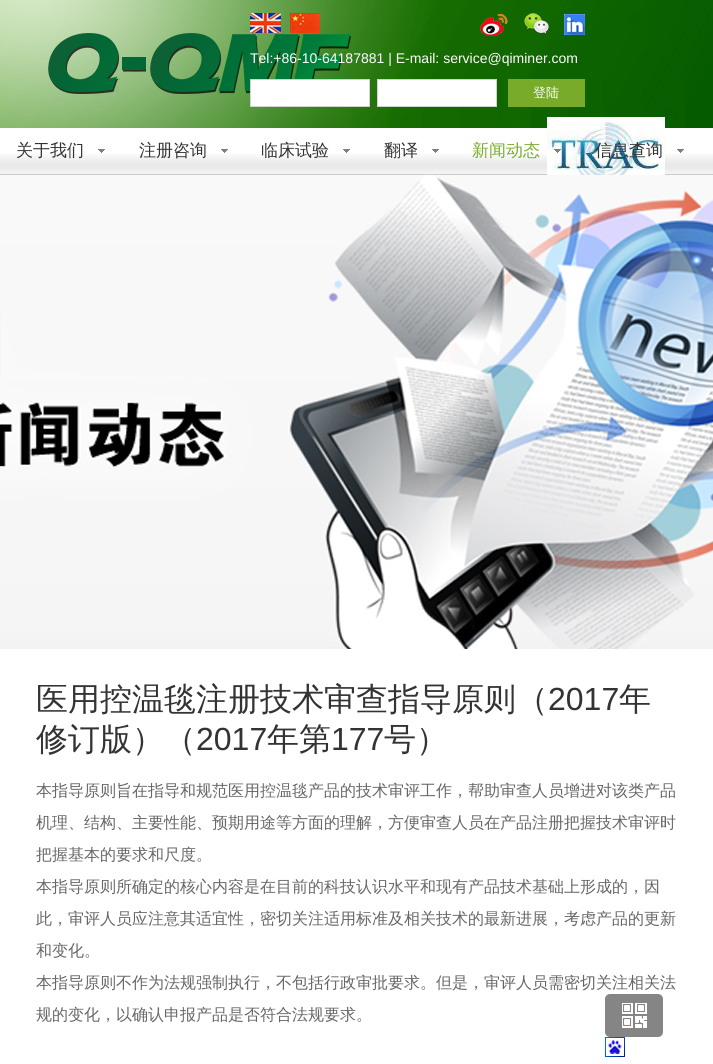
import math
import cairo


def use_color(cr, r, g, b):
  cr.set_source_rgb(r / 255, g / 255, b / 255)

def text(cr, x, y, s, family, size, color, bold=False, italic=False):
  cr.select_font_face(family, cairo.FONT_SLANT_ITALIC if italic else cairo.FONT_SLANT_NORMAL, cairo.FONT_WEIGHT_BOLD if bold else cairo.FONT_WEIGHT_NORMAL)
  cr.set_font_size(size)
  use_color(cr, *color)
  cr.move_to(x, y)
  cr.show_text(s)

def box(cr, x, y, w, h, *color):
  use_color(cr, *color)
  cr.rectangle(x, y, w, h)
  cr.fill()

def picture(cr, path, x, y, w, h):
  cr.save()
  cr.set_source_surface(cairo.ImageSurface.create_from_png(path), x, y)
  cr.rectangle(x, y, w, h)
  cr.fill()
  cr.restore()

def draw(cr):
  use_color(cr, 255, 255, 255)
  cr.paint()
  picture(cr, "img_01.png", 0, 0, 713, 128)
  picture(cr, "img_02.png", 48, 33, 303, 61)
  picture(cr, "img_03.png", 250, 13, 31, 20)
  picture(cr, "img_04.png", 290, 13, 30, 20)
  picture(cr, "img_05.png", 480, 14, 28, 22)
  picture(cr, "img_06.png", 524, 13, 25, 22)
  picture(cr, "img_07.png", 564, 14, 21, 21)
  use_color(cr, 255, 255, 255)
  cr.rectangle(250.5, 79.5, 119, 27)
  cr.fill_preserve()
  use_color(cr, 210, 210, 210)
  cr.set_line_width(1)
  cr.stroke()
  use_color(cr, 255, 255, 255)
  cr.rectangle(377.5, 79.5, 119, 27)
  cr.fill_preserve()
  use_color(cr, 210, 210, 210)
  cr.stroke()
  box(cr, 508, 79, 77, 28, 120, 171, 42)
  picture(cr, "img_09.png", 0, 154, 713, 20)
  box(cr, 0, 174, 713, 1, 204, 204, 204)
  picture(cr, "img_08.png", 547, 117, 118, 58)
  picture(cr, "img_10.png", 98, 149, 7, 4)
  picture(cr, "img_10.png", 221, 149, 7, 4)
  picture(cr, "img_10.png", 343, 149, 7, 4)
  picture(cr, "img_10.png", 432, 149, 7, 4)
  picture(cr, "img_11.png", 554, 149, 7, 4)
  picture(cr, "img_10.png", 677, 149, 7, 4)
  picture(cr, "img_12.png", 0, 175, 713, 474)
  picture(cr, "img_13.png", 605, 994, 58, 43)
  picture(cr, "img_14.png", 605, 1037, 20, 20)
  text(cr, 250, 63, "Tel:+86-10-64187881 | E-mail: service@qiminer.com", "Liberation Sans", 14, (255, 255, 255))
  text(cr, 533, 97, "登陆", "WenQuanYi Zen Hei Medium", 13, (255, 255, 255))
  text(cr, 16, 156, "关于我们", "WenQuanYi Zen Hei Medium", 17, (51, 51, 51))
  text(cr, 139, 156, "注册咨询", "WenQuanYi Zen Hei Medium", 17, (51, 51, 51))
  text(cr, 261, 156, "临床试验", "WenQuanYi Zen Hei Medium", 17, (51, 51, 51))
  text(cr, 384, 156, "翻译", "WenQuanYi Zen Hei Medium", 17, (51, 51, 51))
  text(cr, 472, 156, "新闻动态", "WenQuanYi Zen Hei Medium", 17, (120, 172, 45))
  text(cr, 595, 156, "信息查询", "WenQuanYi Zen Hei Medium", 17, (51, 51, 51))
  text(cr, 36, 710, "医用控温毯注册技术审查指导原则（", "WenQuanYi Zen Hei Medium", 32, (51, 51, 51))
  text(cr, 548, 710, "2017", "Liberation Sans", 32, (51, 51, 51))
  text(cr, 619, 710, "年", "WenQuanYi Zen Hei Medium", 32, (51, 51, 51))
  text(cr, 36, 750, "修订版）（", "WenQuanYi Zen Hei Medium", 32, (51, 51, 51))
  text(cr, 196, 750, "2017", "Liberation Sans", 32, (51, 51, 51))
  text(cr, 267, 750, "年第", "WenQuanYi Zen Hei Medium", 32, (51, 51, 51))
  text(cr, 331, 750, "177", "Liberation Sans", 32, (51, 51, 51))
  text(cr, 384, 750, "号）", "WenQuanYi Zen Hei Medium", 32, (51, 51, 51))
  text(cr, 36, 796, "本指导原则旨在指导和规范医用控温毯产品的技术审评工作，帮助审查人员增进对该类产品", "WenQuanYi Zen Hei Medium", 16, (102, 102, 102))
  text(cr, 36, 828, "机理、结构、主要性能、预期用途等方面的理解，方便审查人员在产品注册把握技术审评时", "WenQuanYi Zen Hei Medium", 16, (102, 102, 102))
  text(cr, 36, 860, "把握基本的要求和尺度。", "WenQuanYi Zen Hei Medium", 16, (102, 102, 102))
  text(cr, 36, 892, "本指导原则所确定的核心内容是在目前的科技认识水平和现有产品技术基础上形成的，因", "WenQuanYi Zen Hei Medium", 16, (102, 102, 102))
  text(cr, 36, 924, "此，审评人员应注意其适宜性，密切关注适用标准及相关技术的最新进展，考虑产品的更新", "WenQuanYi Zen Hei Medium", 16, (102, 102, 102))
  text(cr, 36, 956, "和变化。", "WenQuanYi Zen Hei Medium", 16, (102, 102, 102))
  text(cr, 36, 988, "本指导原则不作为法规强制执行，不包括行政审批要求。但是，审评人员需密切关注相关法", "WenQuanYi Zen Hei Medium", 16, (102, 102, 102))
  text(cr, 36, 1020, "规的变化，以确认申报产品是否符合法规要求。", "WenQuanYi Zen Hei Medium", 16, (102, 102, 102))


surface = cairo.ImageSurface(cairo.FORMAT_RGB24, 713, 1064)
cr = cairo.Context(surface)
options = cairo.FontOptions()
options.set_hint_metrics(cairo.HINT_METRICS_OFF)
options.set_hint_style(cairo.HINT_STYLE_NONE)
cr.set_font_options(options)
cr.set_miter_limit(4)
draw(cr)
surface.write_to_png("out.png")
